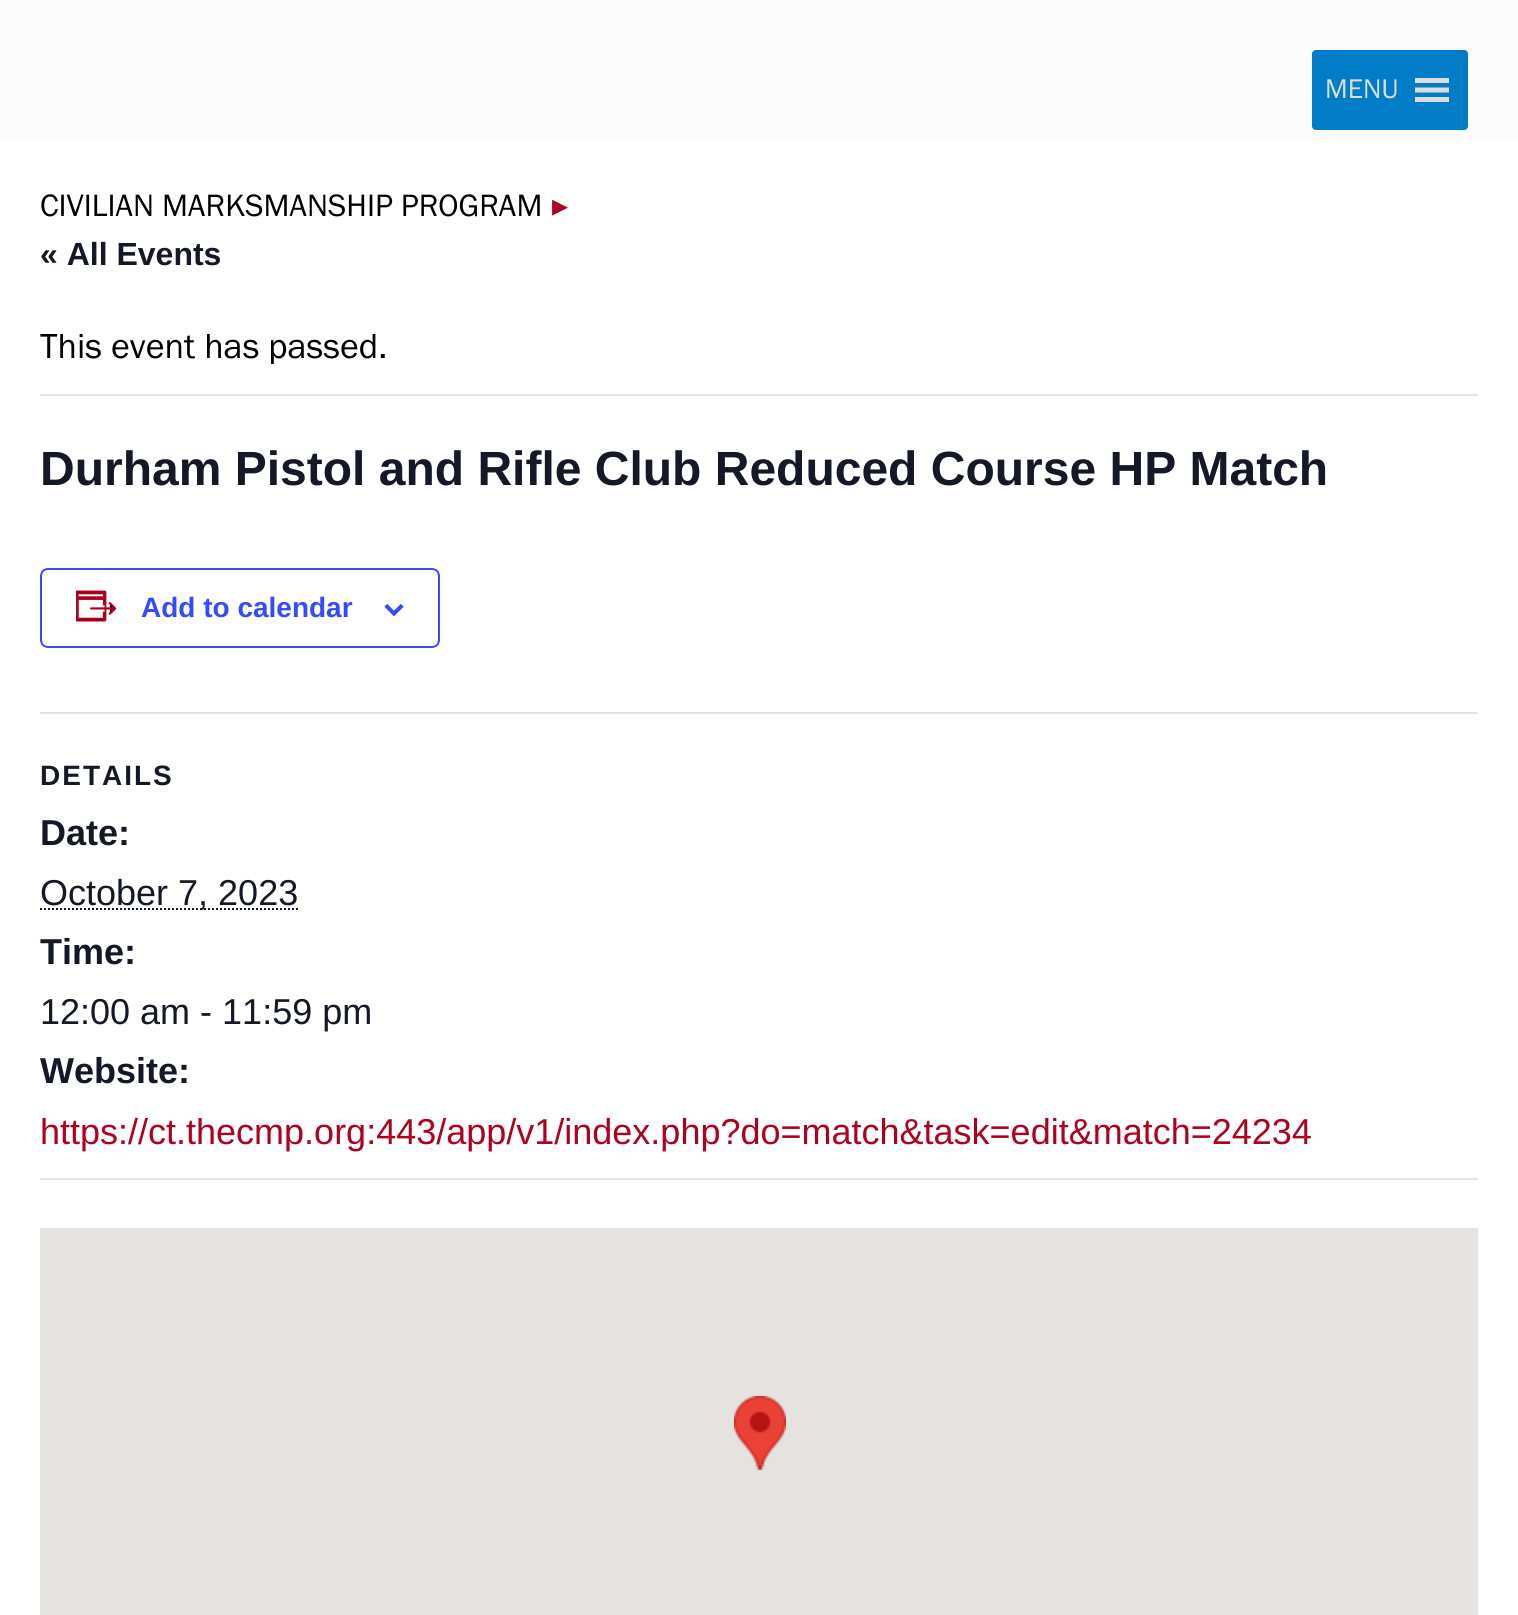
import math
import cairo


def use_color(cr, r, g, b):
  cr.set_source_rgb(r / 255, g / 255, b / 255)

def text(cr, x, y, s, family, size, color, bold=False, italic=False):
  cr.select_font_face(family, cairo.FONT_SLANT_ITALIC if italic else cairo.FONT_SLANT_NORMAL, cairo.FONT_WEIGHT_BOLD if bold else cairo.FONT_WEIGHT_NORMAL)
  cr.set_font_size(size)
  use_color(cr, *color)
  cr.move_to(x, y)
  cr.show_text(s)

def spaced_text(cr, x, y, s, letter, word):
  cr.move_to(x, y)
  for ch in s:
    cr.show_text(ch)
    cr.rel_move_to(letter + word * (ch == ' '), 0)

def box(cr, x, y, w, h, *color):
  use_color(cr, *color)
  cr.rectangle(x, y, w, h)
  cr.fill()

def round_rect(cr, x, y, w, h, r):
  cr.new_sub_path()
  for i, (u, v) in enumerate([(x + w - r, y + h - r), (x + r, y + h - r), (x + r, y + r), (x + w - r, y + r)]):
    cr.arc(u, v, r, i * math.pi / 2, (i + 1) * math.pi / 2)
  cr.close_path()

def picture(cr, path, x, y, w, h):
  cr.save()
  cr.set_source_surface(cairo.ImageSurface.create_from_png(path), x, y)
  cr.rectangle(x, y, w, h)
  cr.fill()
  cr.restore()

def draw(cr):
  use_color(cr, 255, 255, 255)
  cr.paint()
  box(cr, 0, 0, 1518, 140, 252, 252, 252)
  use_color(cr, 0, 125, 198)
  round_rect(cr, 1312, 50, 156, 80, 4)
  cr.fill()
  use_color(cr, 221, 221, 221)
  cr.new_path()
  cr.move_to(1415, 102)
  cr.line_to(1449, 102)
  cr.line_to(1449, 97)
  cr.line_to(1415, 97)
  cr.close_path()
  cr.move_to(1415, 78)
  cr.line_to(1415, 83)
  cr.line_to(1449, 83)
  cr.line_to(1449, 78)
  cr.close_path()
  cr.move_to(1415, 92.5)
  cr.line_to(1449, 92.5)
  cr.line_to(1449, 87.5)
  cr.line_to(1415, 87.5)
  cr.close_path()
  cr.fill()
  box(cr, 40, 394, 1438, 2, 228, 228, 228)
  round_rect(cr, 41, 569, 398, 78, 7)
  use_color(cr, 51, 74, 255)
  cr.stroke()
  picture(cr, "img_01.png", 76, 590, 41, 32)
  picture(cr, "img_02.png", 384, 604, 20, 12)
  box(cr, 40, 712, 1438, 2, 228, 228, 228)
  cr.new_path()
  cr.move_to(40, 909)
  cr.line_to(298, 909)
  use_color(cr, 20, 24, 39)
  cr.set_dash([2, 2])
  cr.stroke()
  box(cr, 40, 1178, 1438, 2, 228, 228, 228)
  box(cr, 40, 1228, 1438, 387, 229, 227, 223)
  picture(cr, "img_03.png", 734, 1396, 52, 74)
  text(cr, 1325, 98, "MENU", "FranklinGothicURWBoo", 28, (221, 221, 221))
  text(cr, 40, 216, "CIVILIAN MARKSMANSHIP PROGRAM", "FranklinGothicURWBoo", 32, (0, 0, 0))
  text(cr, 552, 216, "▸", "DejaVu Sans", 32, (176, 0, 32))
  text(cr, 40, 265, "« All Events", "Liberation Sans", 32, (20, 24, 39), bold=True)
  text(cr, 40, 358, "This event has passed.", "FranklinGothicURWBoo", 36, (0, 0, 0))
  text(cr, 40, 485, "Durham Pistol and Rifle Club Reduced Course HP Match", "Liberation Sans", 48, (20, 24, 39), bold=True)
  text(cr, 141, 617, "Add to calendar", "Liberation Sans", 28, (51, 74, 255), bold=True)
  use_color(cr, 20, 24, 39)
  spaced_text(cr, 40, 785, "DETAILS", 2, 0)
  text(cr, 40, 845, "Date:", "Liberation Sans", 36, (20, 24, 39), bold=True)
  text(cr, 40, 905, "October 7, 2023", "Liberation Sans", 36, (20, 24, 39))
  text(cr, 40, 964, "Time:", "Liberation Sans", 36, (20, 24, 39), bold=True)
  text(cr, 40, 1024, "12:00 am - 11:59 pm", "Liberation Sans", 36, (20, 24, 39))
  text(cr, 40, 1083, "Website:", "Liberation Sans", 36, (20, 24, 39), bold=True)
  text(cr, 40, 1144, "https://ct.thecmp.org:443/app/v1/index.php?do=match&task=edit&match=24234", "Liberation Sans", 36, (176, 0, 32))


surface = cairo.ImageSurface(cairo.FORMAT_RGB24, 1518, 1615)
cr = cairo.Context(surface)
options = cairo.FontOptions()
options.set_hint_metrics(cairo.HINT_METRICS_OFF)
options.set_hint_style(cairo.HINT_STYLE_NONE)
cr.set_font_options(options)
cr.set_miter_limit(4)
draw(cr)
surface.write_to_png("out.png")
